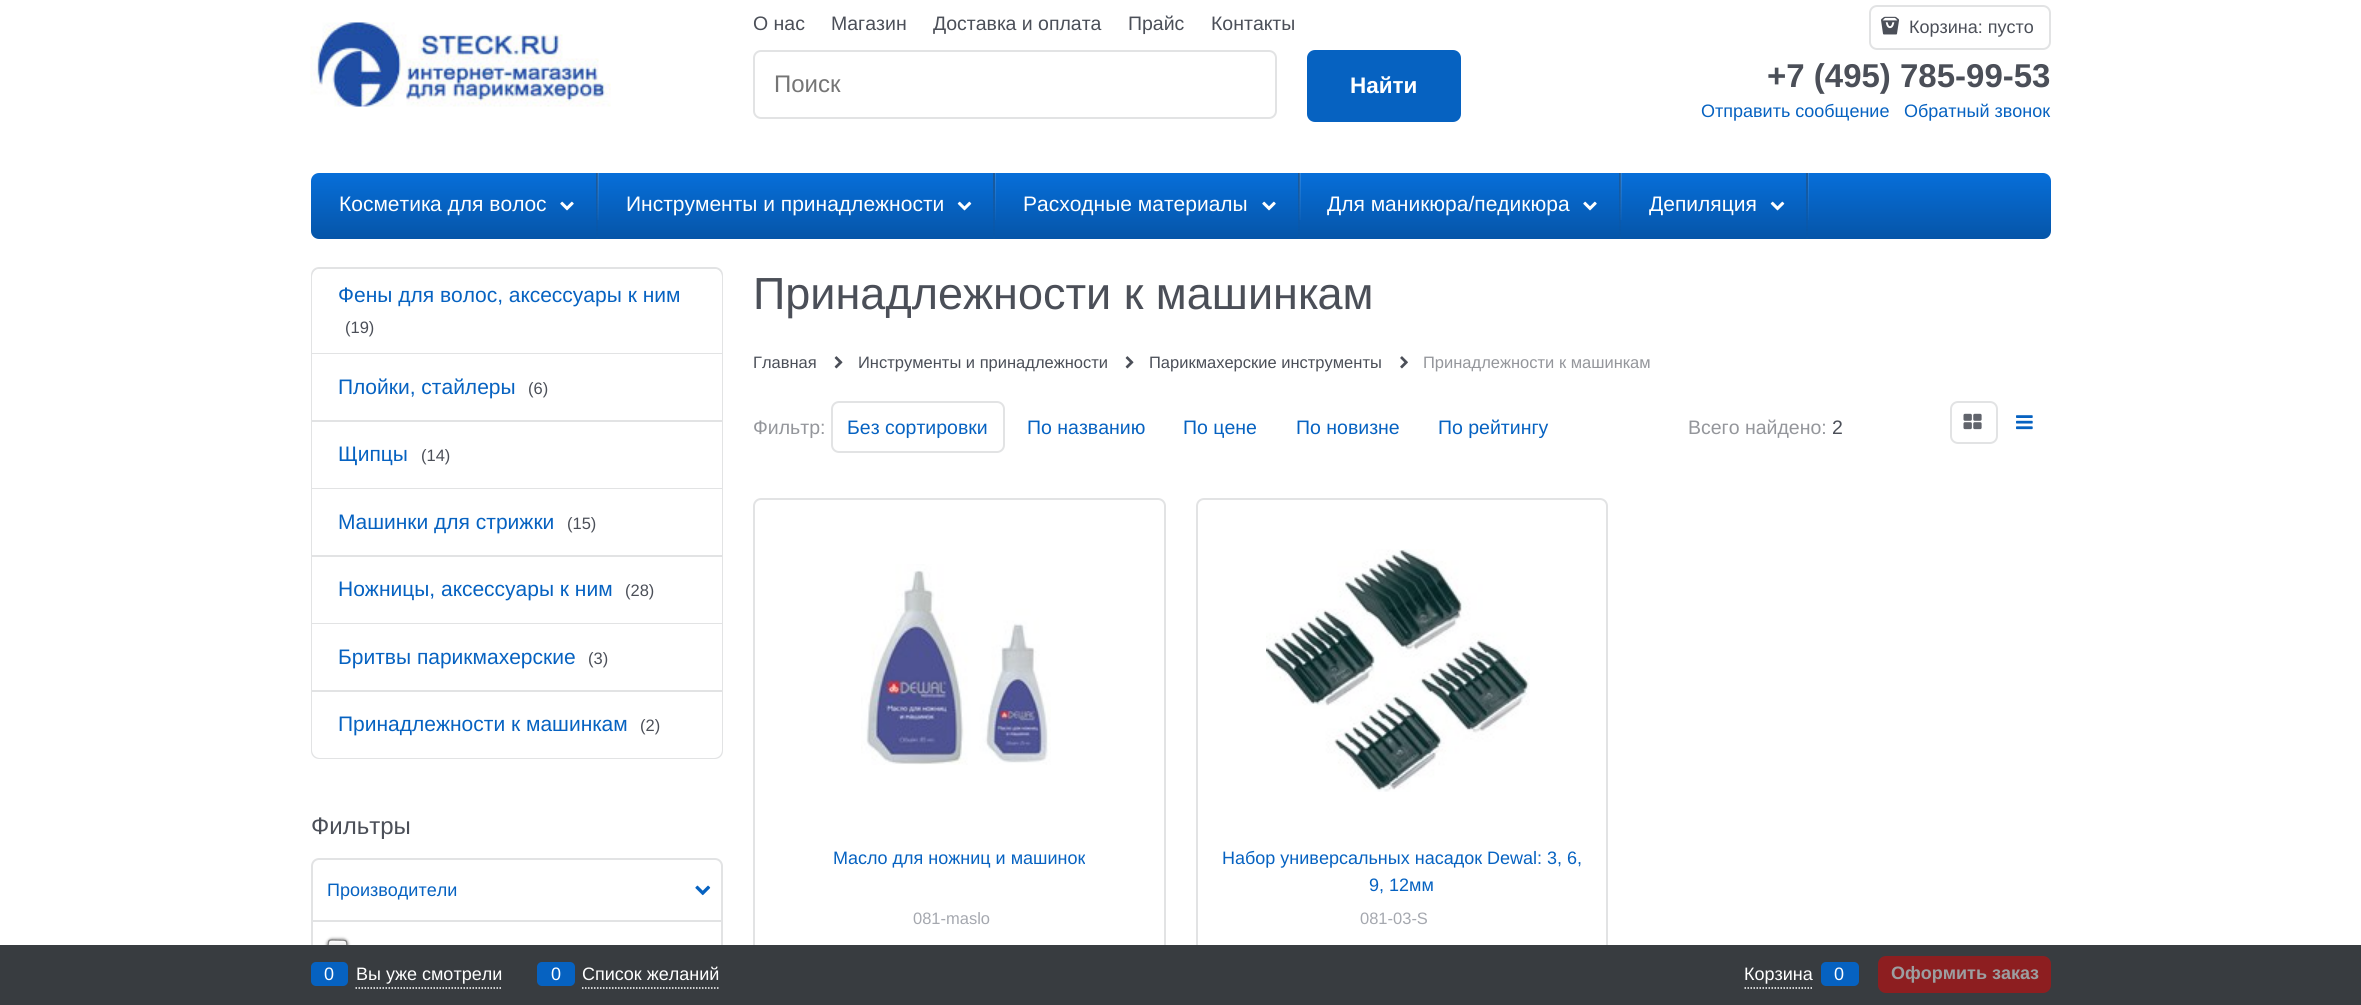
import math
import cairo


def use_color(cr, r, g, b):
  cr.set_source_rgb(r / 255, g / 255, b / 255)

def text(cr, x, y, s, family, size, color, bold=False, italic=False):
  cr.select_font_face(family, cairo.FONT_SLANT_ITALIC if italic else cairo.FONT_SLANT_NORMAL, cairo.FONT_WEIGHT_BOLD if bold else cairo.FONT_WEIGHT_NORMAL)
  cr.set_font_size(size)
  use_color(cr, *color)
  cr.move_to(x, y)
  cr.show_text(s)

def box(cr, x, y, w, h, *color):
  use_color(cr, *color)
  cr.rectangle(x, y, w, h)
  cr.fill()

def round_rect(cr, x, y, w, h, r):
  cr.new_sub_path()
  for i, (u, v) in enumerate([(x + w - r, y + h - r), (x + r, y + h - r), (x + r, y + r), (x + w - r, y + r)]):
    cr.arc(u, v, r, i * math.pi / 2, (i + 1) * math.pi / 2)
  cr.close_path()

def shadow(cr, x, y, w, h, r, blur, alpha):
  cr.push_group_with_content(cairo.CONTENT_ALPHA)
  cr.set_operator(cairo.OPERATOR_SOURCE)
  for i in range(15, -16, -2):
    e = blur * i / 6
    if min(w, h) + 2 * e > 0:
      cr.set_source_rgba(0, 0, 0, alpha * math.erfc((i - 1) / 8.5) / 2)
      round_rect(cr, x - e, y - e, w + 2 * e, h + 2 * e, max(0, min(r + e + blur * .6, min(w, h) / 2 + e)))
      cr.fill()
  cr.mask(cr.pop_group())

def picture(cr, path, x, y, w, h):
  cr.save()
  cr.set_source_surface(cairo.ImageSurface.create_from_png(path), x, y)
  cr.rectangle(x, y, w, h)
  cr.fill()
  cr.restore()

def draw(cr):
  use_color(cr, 255, 255, 255)
  cr.paint()
  picture(cr, "img_01.png", 310, 22, 301, 85)
  round_rect(cr, 754, 51, 522, 67, 7)
  use_color(cr, 226, 227, 228)
  cr.stroke()
  use_color(cr, 6, 98, 193)
  round_rect(cr, 1307, 50, 154, 72, 8)
  cr.fill()
  round_rect(cr, 1870, 6, 180, 43, 7)
  use_color(cr, 226, 227, 228)
  cr.stroke()
  picture(cr, "img_02.png", 1881, 16, 18, 19)
  gradient = cairo.LinearGradient(1181, 172, 1181, 239)
  gradient.add_color_stop_rgba(0, 0.027, 0.435, 0.855, 1)
  gradient.add_color_stop_rgba(0.5, 0.024, 0.384, 0.757, 1)
  gradient.add_color_stop_rgba(1, 0.02, 0.333, 0.659, 1)
  cr.set_source(gradient)
  round_rect(cr, 311, 173, 1740, 66, 8)
  cr.fill()
  picture(cr, "img_03.png", 560, 201, 14, 10)
  gradient = cairo.LinearGradient(598, 173, 598, 239)
  gradient.add_color_stop_rgba(0, 1, 1, 1, 0.14)
  gradient.add_color_stop_rgba(0.72, 1, 1, 1, 0.02)
  gradient.add_color_stop_rgba(1, 1, 1, 1, 0)
  cr.set_source(gradient)
  cr.rectangle(597, 173, 2, 47)
  cr.fill()
  gradient = cairo.LinearGradient(596, 173, 596, 239)
  gradient.add_color_stop_rgba(0, 0.224, 0.224, 0.224, 0.39)
  gradient.add_color_stop_rgba(0.17, 0.224, 0.224, 0.224, 0.33)
  gradient.add_color_stop_rgba(0.61, 0.224, 0.224, 0.224, 0.12)
  gradient.add_color_stop_rgba(0.96, 0.224, 0.224, 0.224, 0.01)
  gradient.add_color_stop_rgba(0.98, 1, 1, 1, 0.01)
  gradient.add_color_stop_rgba(1, 1, 1, 1, 0)
  cr.set_source(gradient)
  cr.rectangle(596, 173, 2, 66)
  cr.fill()
  picture(cr, "img_04.png", 957, 201, 15, 10)
  gradient = cairo.LinearGradient(995, 173, 995, 239)
  gradient.add_color_stop_rgba(0, 1, 1, 1, 0.14)
  gradient.add_color_stop_rgba(0.72, 1, 1, 1, 0.02)
  gradient.add_color_stop_rgba(1, 1, 1, 1, 0)
  cr.set_source(gradient)
  cr.rectangle(995, 173, 1, 47)
  cr.fill()
  gradient = cairo.LinearGradient(994, 173, 994, 239)
  gradient.add_color_stop_rgba(0, 0.224, 0.224, 0.224, 0.39)
  gradient.add_color_stop_rgba(0.17, 0.224, 0.224, 0.224, 0.33)
  gradient.add_color_stop_rgba(0.61, 0.224, 0.224, 0.224, 0.12)
  gradient.add_color_stop_rgba(0.96, 0.224, 0.224, 0.224, 0.01)
  gradient.add_color_stop_rgba(0.98, 1, 1, 1, 0.01)
  gradient.add_color_stop_rgba(1, 1, 1, 1, 0)
  cr.set_source(gradient)
  cr.rectangle(993, 173, 2, 66)
  cr.fill()
  picture(cr, "img_03.png", 1262, 201, 14, 10)
  gradient = cairo.LinearGradient(1300, 173, 1300, 239)
  gradient.add_color_stop_rgba(0, 1, 1, 1, 0.14)
  gradient.add_color_stop_rgba(0.72, 1, 1, 1, 0.02)
  gradient.add_color_stop_rgba(1, 1, 1, 1, 0)
  cr.set_source(gradient)
  cr.rectangle(1299, 173, 2, 47)
  cr.fill()
  gradient = cairo.LinearGradient(1298, 173, 1298, 239)
  gradient.add_color_stop_rgba(0, 0.224, 0.224, 0.224, 0.39)
  gradient.add_color_stop_rgba(0.17, 0.224, 0.224, 0.224, 0.33)
  gradient.add_color_stop_rgba(0.61, 0.224, 0.224, 0.224, 0.12)
  gradient.add_color_stop_rgba(0.96, 0.224, 0.224, 0.224, 0.01)
  gradient.add_color_stop_rgba(0.98, 1, 1, 1, 0.01)
  gradient.add_color_stop_rgba(1, 1, 1, 1, 0)
  cr.set_source(gradient)
  cr.rectangle(1298, 173, 2, 66)
  cr.fill()
  picture(cr, "img_03.png", 1583, 201, 14, 10)
  gradient = cairo.LinearGradient(1621, 173, 1621, 239)
  gradient.add_color_stop_rgba(0, 1, 1, 1, 0.14)
  gradient.add_color_stop_rgba(0.72, 1, 1, 1, 0.02)
  gradient.add_color_stop_rgba(1, 1, 1, 1, 0)
  cr.set_source(gradient)
  cr.rectangle(1620, 173, 2, 47)
  cr.fill()
  gradient = cairo.LinearGradient(1619, 173, 1619, 239)
  gradient.add_color_stop_rgba(0, 0.224, 0.224, 0.224, 0.39)
  gradient.add_color_stop_rgba(0.17, 0.224, 0.224, 0.224, 0.33)
  gradient.add_color_stop_rgba(0.61, 0.224, 0.224, 0.224, 0.12)
  gradient.add_color_stop_rgba(0.96, 0.224, 0.224, 0.224, 0.01)
  gradient.add_color_stop_rgba(0.98, 1, 1, 1, 0.01)
  gradient.add_color_stop_rgba(1, 1, 1, 1, 0)
  cr.set_source(gradient)
  cr.rectangle(1619, 173, 2, 66)
  cr.fill()
  picture(cr, "img_04.png", 1770, 201, 15, 10)
  gradient = cairo.LinearGradient(1808, 173, 1808, 239)
  gradient.add_color_stop_rgba(0, 1, 1, 1, 0.14)
  gradient.add_color_stop_rgba(0.72, 1, 1, 1, 0.02)
  gradient.add_color_stop_rgba(1, 1, 1, 1, 0)
  cr.set_source(gradient)
  cr.rectangle(1808, 173, 1, 47)
  cr.fill()
  gradient = cairo.LinearGradient(1807, 173, 1807, 239)
  gradient.add_color_stop_rgba(0, 0.224, 0.224, 0.224, 0.39)
  gradient.add_color_stop_rgba(0.17, 0.224, 0.224, 0.224, 0.33)
  gradient.add_color_stop_rgba(0.61, 0.224, 0.224, 0.224, 0.12)
  gradient.add_color_stop_rgba(0.96, 0.224, 0.224, 0.224, 0.01)
  gradient.add_color_stop_rgba(0.98, 1, 1, 1, 0.01)
  gradient.add_color_stop_rgba(1, 1, 1, 1, 0)
  cr.set_source(gradient)
  cr.rectangle(1806, 173, 2, 66)
  cr.fill()
  round_rect(cr, 312, 268, 410, 490, 7)
  use_color(cr, 226, 227, 228)
  cr.stroke()
  box(cr, 312, 353, 410, 1, 226, 227, 228)
  use_color(cr, 255, 255, 255)
  cr.new_path()
  cr.move_to(320, 269)
  cr.line_to(714, 269)
  cr.curve_to(718.5, 269, 722, 272.5, 722, 277)
  cr.line_to(722, 353)
  cr.line_to(312, 353)
  cr.line_to(312, 277)
  cr.curve_to(312, 272.5, 315.5, 269, 320, 269)
  cr.close_path()
  cr.fill()
  box(cr, 312, 420, 410, 2, 226, 227, 228)
  box(cr, 312, 354, 410, 66, 255, 255, 255)
  box(cr, 312, 488, 410, 1, 226, 227, 228)
  box(cr, 312, 422, 410, 66, 255, 255, 255)
  box(cr, 312, 555, 410, 2, 226, 227, 228)
  box(cr, 312, 489, 410, 66, 255, 255, 255)
  box(cr, 312, 623, 410, 1, 226, 227, 228)
  box(cr, 312, 557, 410, 66, 255, 255, 255)
  box(cr, 312, 690, 410, 2, 226, 227, 228)
  box(cr, 312, 624, 410, 66, 255, 255, 255)
  cr.new_path()
  cr.move_to(312, 692)
  cr.line_to(722, 692)
  cr.line_to(722, 750)
  cr.curve_to(722, 754.5, 718.5, 758, 714, 758)
  cr.line_to(320, 758)
  cr.curve_to(315.5, 758, 312, 754.5, 312, 750)
  cr.close_path()
  cr.fill()
  round_rect(cr, 312, 859, 410, 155, 7)
  use_color(cr, 226, 227, 228)
  cr.stroke()
  picture(cr, "img_05.png", 695, 885, 16, 11)
  box(cr, 312, 920, 410, 2, 226, 227, 228)
  use_color(cr, 129, 129, 129)
  shadow(cr, 327, 939, 21, 21, 5, 1.5, 1)
  cr.save()
  round_rect(cr, 327, 939, 21, 21, 5)
  cr.clip()
  gradient = cairo.LinearGradient(338, 923, 338, 941)
  gradient.add_color_stop_rgba(0, 0.992, 0.992, 0.992, 1)
  gradient.add_color_stop_rgba(0.11, 0.953, 0.953, 0.953, 1)
  gradient.add_color_stop_rgba(0.33, 0.922, 0.922, 0.922, 1)
  gradient.add_color_stop_rgba(0.44, 0.863, 0.863, 0.863, 1)
  gradient.add_color_stop_rgba(0.67, 0.902, 0.902, 0.902, 1)
  gradient.add_color_stop_rgba(0.78, 0.941, 0.941, 0.941, 1)
  gradient.add_color_stop_rgba(0.89, 0.965, 0.965, 0.965, 1)
  gradient.add_color_stop_rgba(1, 1, 1, 1, 1)
  cr.set_source(gradient)
  cr.rectangle(327, 939, 21, 2)
  cr.fill()
  gradient = cairo.LinearGradient(338, 941, 338, 959)
  gradient.add_color_stop_rgba(0, 0.992, 0.992, 0.992, 1)
  gradient.add_color_stop_rgba(0.11, 0.953, 0.953, 0.953, 1)
  gradient.add_color_stop_rgba(0.33, 0.922, 0.922, 0.922, 1)
  gradient.add_color_stop_rgba(0.44, 0.863, 0.863, 0.863, 1)
  gradient.add_color_stop_rgba(0.67, 0.902, 0.902, 0.902, 1)
  gradient.add_color_stop_rgba(0.78, 0.941, 0.941, 0.941, 1)
  gradient.add_color_stop_rgba(0.89, 0.965, 0.965, 0.965, 1)
  gradient.add_color_stop_rgba(1, 1, 1, 1, 1)
  cr.set_source(gradient)
  cr.rectangle(327, 941, 21, 4)
  cr.fill()
  cr.restore()
  cr.new_path()
  cr.move_to(329, 958)
  cr.curve_to(327, 956, 328, 950, 328, 947.5)
  cr.curve_to(328, 938.5, 329, 940, 337.5, 940)
  cr.curve_to(347.5, 940, 347, 939.5, 347, 949.5)
  cr.curve_to(347, 952, 348, 956, 346, 958)
  use_color(cr, 129, 129, 129)
  cr.set_line_width(1.5)
  cr.stroke()
  picture(cr, "img_06.png", 834, 356, 9, 13)
  picture(cr, "img_06.png", 1125, 356, 9, 13)
  picture(cr, "img_07.png", 1400, 356, 8, 13)
  round_rect(cr, 832, 402, 172, 50, 7)
  use_color(cr, 226, 227, 228)
  cr.set_line_width(2)
  cr.stroke()
  round_rect(cr, 1951, 402, 46, 41, 7)
  cr.stroke()
  picture(cr, "img_08.png", 1963, 413, 19, 17)
  picture(cr, "img_09.png", 2016, 415, 17, 15)
  round_rect(cr, 754, 499, 411, 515, 7)
  cr.stroke()
  picture(cr, "img_10.png", 861, 564, 190, 201)
  round_rect(cr, 1197, 499, 410, 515, 7)
  cr.stroke()
  picture(cr, "img_11.png", 1266, 549, 264, 243)
  box(cr, 0, 945, 2361, 60, 56, 60, 64)
  cr.new_path()
  cr.move_to(355.5, 988)
  cr.line_to(501, 988)
  use_color(cr, 255, 255, 255)
  cr.set_line_width(1.5)
  cr.set_dash([1.5, 1.5])
  cr.stroke()
  use_color(cr, 6, 98, 193)
  round_rect(cr, 311, 962, 37, 24, 5)
  cr.fill()
  cr.new_path()
  cr.move_to(582, 988)
  cr.line_to(720, 988)
  use_color(cr, 255, 255, 255)
  cr.stroke()
  use_color(cr, 6, 98, 193)
  round_rect(cr, 537, 962, 38, 24, 5)
  cr.fill()
  cr.new_path()
  cr.move_to(1744.5, 988)
  cr.line_to(1813.5, 988)
  use_color(cr, 255, 255, 255)
  cr.stroke()
  use_color(cr, 6, 98, 193)
  round_rect(cr, 1821, 962, 38, 24, 5)
  cr.fill()
  use_color(cr, 141, 30, 32)
  round_rect(cr, 1878, 956, 173, 37, 8)
  cr.fill()
  text(cr, 753, 30, "О нас", "Liberation Sans", 19.5, (75, 79, 88))
  text(cr, 831, 30, "Магазин", "Liberation Sans", 19.5, (75, 79, 88))
  text(cr, 933, 30, "Доставка и оплата", "Liberation Sans", 19.5, (75, 79, 88))
  text(cr, 1128, 30, "Прайс", "Liberation Sans", 19.5, (75, 79, 88))
  text(cr, 1211, 30, "Контакты", "Liberation Sans", 19.5, (75, 79, 88))
  text(cr, 774, 92, "Поиск", "Liberation Sans", 24, (117, 117, 117))
  text(cr, 1350, 93, "Найти", "Liberation Sans", 22.5, (255, 255, 255), bold=True)
  text(cr, 1909, 33, "Корзина: пусто", "Liberation Sans", 18, (75, 79, 88))
  text(cr, 1767, 87, "+7 (495) 785-99-53", "Liberation Sans", 33, (75, 79, 88), bold=True)
  text(cr, 1701, 117, "Отправить сообщение", "Liberation Sans", 18, (6, 98, 193))
  text(cr, 1904, 117, "Обратный звонок", "Liberation Sans", 18, (6, 98, 193))
  text(cr, 339, 211, "Косметика для волос", "Liberation Sans", 21, (255, 255, 255))
  text(cr, 626, 211, "Инструменты и принадлежности", "Liberation Sans", 21, (255, 255, 255))
  text(cr, 1023, 211, "Расходные материалы", "Liberation Sans", 21, (255, 255, 255))
  text(cr, 1327, 211, "Для маникюра/педикюра", "Liberation Sans", 21, (255, 255, 255))
  text(cr, 1649, 211, "Депиляция", "Liberation Sans", 21, (255, 255, 255))
  text(cr, 338, 302, "Фены для волос, аксессуары к ним", "Liberation Sans", 21, (6, 98, 193))
  text(cr, 345, 333, "(19)", "Liberation Sans", 16.5, (75, 79, 88))
  text(cr, 338, 394, "Плойки, стайлеры", "Liberation Sans", 21, (6, 98, 193))
  text(cr, 528, 394, "(6)", "Liberation Sans", 16.5, (75, 79, 88))
  text(cr, 338, 461, "Щипцы", "Liberation Sans", 21, (6, 98, 193))
  text(cr, 421, 461, "(14)", "Liberation Sans", 16.5, (75, 79, 88))
  text(cr, 338, 529, "Машинки для стрижки", "Liberation Sans", 21, (6, 98, 193))
  text(cr, 567, 529, "(15)", "Liberation Sans", 16.5, (75, 79, 88))
  text(cr, 338, 596, "Ножницы, аксессуары к ним", "Liberation Sans", 21, (6, 98, 193))
  text(cr, 625, 596, "(28)", "Liberation Sans", 16.5, (75, 79, 88))
  text(cr, 338, 664, "Бритвы парикмахерские", "Liberation Sans", 21, (6, 98, 193))
  text(cr, 588, 664, "(3)", "Liberation Sans", 16.5, (75, 79, 88))
  text(cr, 338, 731, "Принадлежности к машинкам", "Liberation Sans", 21, (6, 98, 193))
  text(cr, 640, 731, "(2)", "Liberation Sans", 16.5, (75, 79, 88))
  text(cr, 311, 834, "Фильтры", "Liberation Sans", 24, (75, 79, 88))
  text(cr, 327, 896, "Производители", "Liberation Sans", 18, (6, 98, 193))
  text(cr, 753, 309, "Принадлежности к машинкам", "Liberation Sans", 45, (75, 79, 88))
  text(cr, 753, 368, "Главная", "Liberation Sans", 16.5, (75, 79, 88))
  text(cr, 858, 368, "Инструменты и принадлежности", "Liberation Sans", 16.5, (75, 79, 88))
  text(cr, 1149, 368, "Парикмахерские инструменты", "Liberation Sans", 16.5, (75, 79, 88))
  text(cr, 1423, 368, "Принадлежности к машинкам", "Liberation Sans", 16.5, (148, 150, 155))
  text(cr, 753, 434, "Фильтр:", "Liberation Sans", 19.5, (148, 150, 155))
  text(cr, 847, 434, "Без сортировки", "Liberation Sans", 19.5, (6, 98, 193))
  text(cr, 1027, 434, "По названию", "Liberation Sans", 19.5, (6, 98, 193))
  text(cr, 1183, 434, "По цене", "Liberation Sans", 19.5, (6, 98, 193))
  text(cr, 1296, 434, "По новизне", "Liberation Sans", 19.5, (6, 98, 193))
  text(cr, 1438, 434, "По рейтингу", "Liberation Sans", 19.5, (6, 98, 193))
  text(cr, 1688, 434, "Всего найдено:", "Liberation Sans", 19.5, (148, 150, 155))
  text(cr, 1832, 434, "2", "Liberation Sans", 19.5, (75, 79, 88))
  text(cr, 833, 864, "Масло для ножниц и машинок", "Liberation Sans", 18, (6, 98, 193))
  text(cr, 913, 924, "081-maslo", "Liberation Sans", 16.5, (165, 168, 175))
  text(cr, 1222, 864, "Набор универсальных насадок Dewal: 3, 6,", "Liberation Sans", 18, (6, 98, 193))
  text(cr, 1369, 891, "9, 12мм", "Liberation Sans", 18, (6, 98, 193))
  text(cr, 1360, 924, "081-03-S", "Liberation Sans", 16.5, (165, 168, 175))
  text(cr, 324, 980, "0", "Liberation Sans", 18, (255, 255, 255))
  text(cr, 356, 980, "Вы уже смотрели", "Liberation Sans", 18, (255, 255, 255))
  text(cr, 551, 980, "0", "Liberation Sans", 18, (255, 255, 255))
  text(cr, 582, 980, "Список желаний", "Liberation Sans", 18, (255, 255, 255))
  text(cr, 1744, 980, "Корзина", "Liberation Sans", 18, (255, 255, 255))
  text(cr, 1834, 980, "0", "Liberation Sans", 18, (255, 255, 255))
  text(cr, 1891, 979, "Оформить заказ", "Liberation Sans", 18, (156, 158, 160), bold=True)


surface = cairo.ImageSurface(cairo.FORMAT_RGB24, 2361, 1005)
cr = cairo.Context(surface)
options = cairo.FontOptions()
options.set_hint_metrics(cairo.HINT_METRICS_OFF)
options.set_hint_style(cairo.HINT_STYLE_NONE)
cr.set_font_options(options)
cr.set_miter_limit(4)
draw(cr)
surface.write_to_png("out.png")
